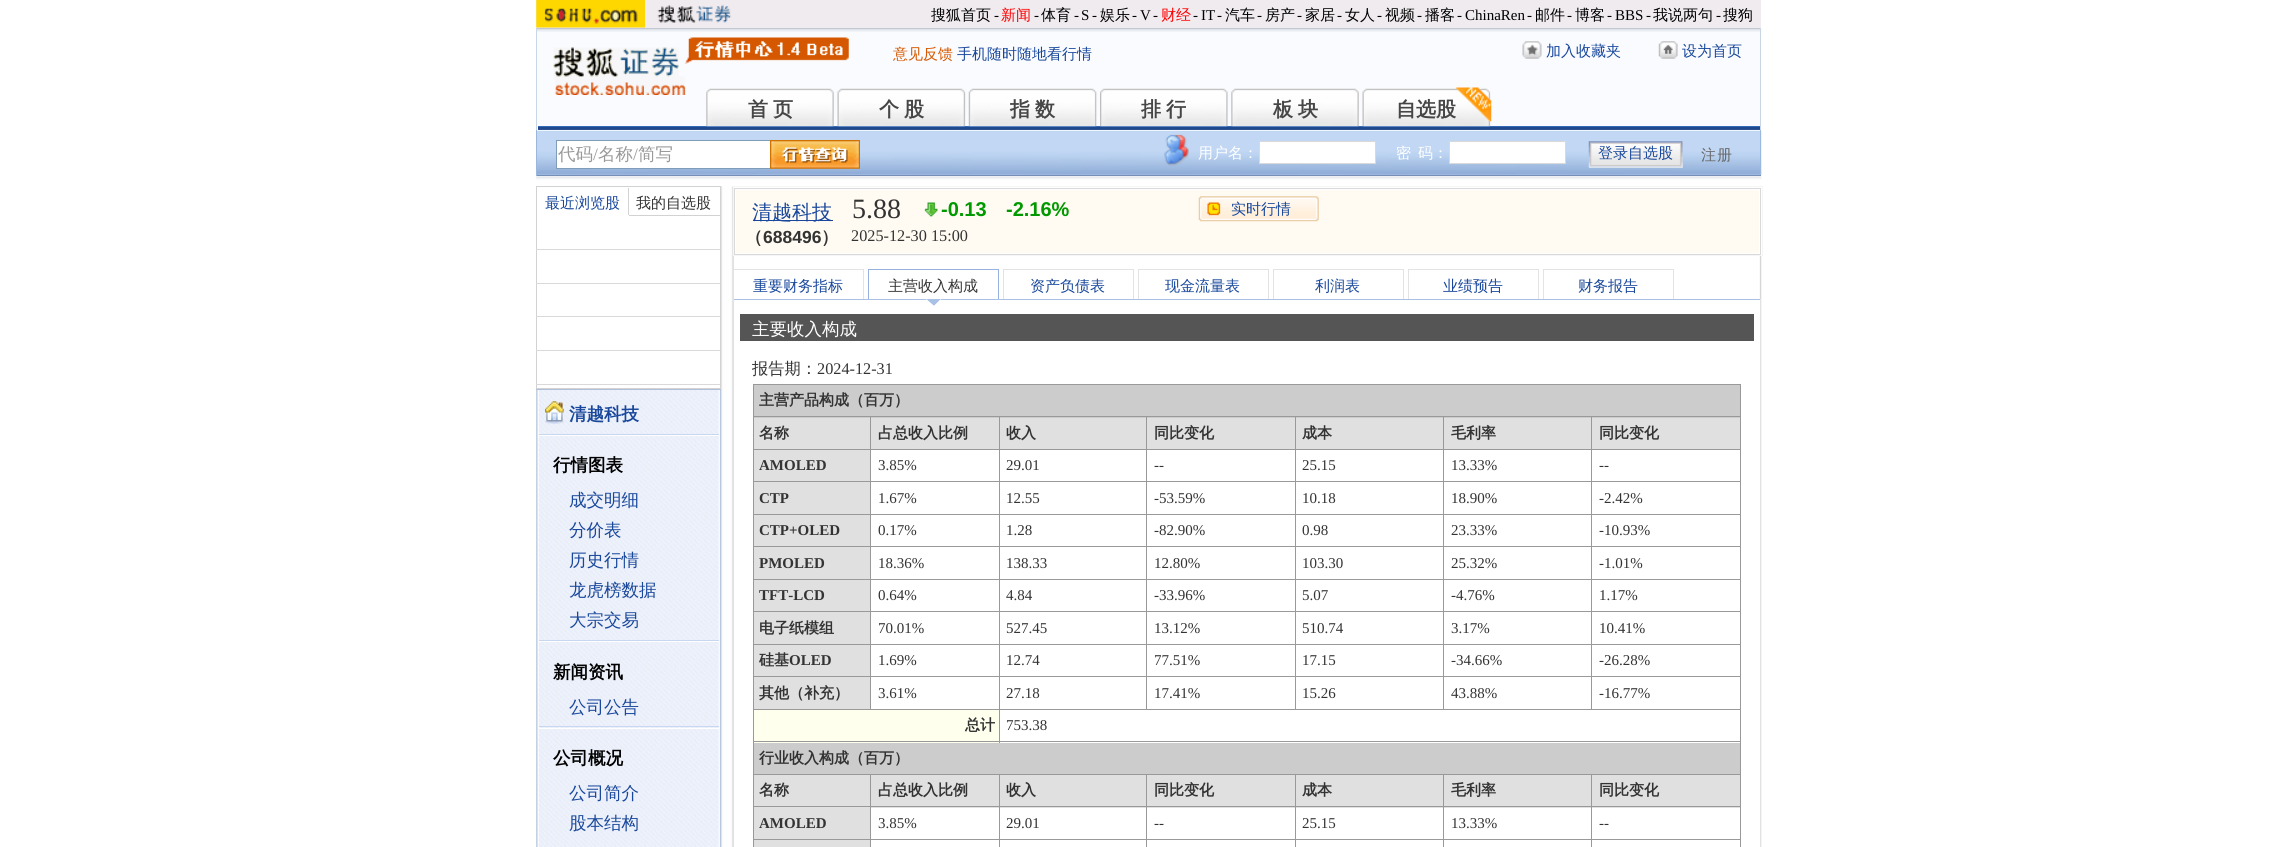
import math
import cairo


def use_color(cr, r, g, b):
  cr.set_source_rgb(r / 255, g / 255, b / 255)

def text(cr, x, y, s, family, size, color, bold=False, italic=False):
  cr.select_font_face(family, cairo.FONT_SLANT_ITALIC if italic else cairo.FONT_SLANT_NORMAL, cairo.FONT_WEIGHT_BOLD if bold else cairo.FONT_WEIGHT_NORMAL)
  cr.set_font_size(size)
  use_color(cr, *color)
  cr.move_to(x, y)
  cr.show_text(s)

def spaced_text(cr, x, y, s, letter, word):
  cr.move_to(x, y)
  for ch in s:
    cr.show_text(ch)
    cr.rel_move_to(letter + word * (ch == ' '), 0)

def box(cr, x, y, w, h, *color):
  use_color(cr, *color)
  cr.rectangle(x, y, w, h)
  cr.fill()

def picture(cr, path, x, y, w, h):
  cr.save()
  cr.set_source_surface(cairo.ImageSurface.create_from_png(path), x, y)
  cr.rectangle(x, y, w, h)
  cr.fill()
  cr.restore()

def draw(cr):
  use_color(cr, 255, 255, 255)
  cr.paint()
  box(cr, 536, 0, 1225, 28, 239, 235, 239)
  picture(cr, "img_01.png", 536, 0, 109, 28)
  picture(cr, "img_02.png", 657, 4, 75, 19)
  box(cr, 537, 32, 1223, 98, 250, 251, 254)
  picture(cr, "img_03.png", 537, 28, 1225, 4)
  box(cr, 536, 28, 1225, 1, 194, 199, 212)
  box(cr, 1760, 28, 1, 102, 200, 214, 229)
  box(cr, 536, 28, 1, 102, 200, 214, 229)
  picture(cr, "img_04.png", 553, 37, 296, 58)
  picture(cr, "img_05.png", 1522, 41, 20, 18)
  picture(cr, "img_06.png", 1658, 41, 20, 18)
  box(cr, 538, 126, 1222, 1, 50, 106, 184)
  picture(cr, "img_07.png", 706, 88, 128, 39)
  picture(cr, "img_08.png", 837, 88, 129, 39)
  picture(cr, "img_09.png", 968, 88, 129, 39)
  picture(cr, "img_10.png", 1100, 88, 128, 39)
  picture(cr, "img_11.png", 1231, 88, 128, 39)
  picture(cr, "img_12.png", 1362, 88, 129, 39)
  picture(cr, "img_13.png", 1455, 87, 37, 35)
  box(cr, 538, 127, 1222, 2, 32, 72, 140)
  box(cr, 538, 129, 1222, 1, 44, 82, 146)
  box(cr, 537, 131, 1223, 1, 189, 212, 241)
  picture(cr, "img_14.png", 537, 130, 1225, 46)
  box(cr, 536, 130, 1225, 1, 238, 247, 255)
  box(cr, 1760, 130, 1, 46, 155, 183, 222)
  box(cr, 536, 175, 1225, 1, 117, 143, 185)
  box(cr, 536, 130, 1, 46, 155, 183, 222)
  use_color(cr, 255, 255, 255)
  cr.rectangle(556.5, 140.5, 214, 28)
  cr.fill_preserve()
  use_color(cr, 127, 157, 185)
  cr.set_line_width(1)
  cr.stroke()
  picture(cr, "img_15.png", 770, 140, 90, 29)
  picture(cr, "img_16.png", 1164, 134, 25, 32)
  use_color(cr, 255, 255, 255)
  cr.rectangle(1259.5, 141.5, 116, 22)
  cr.fill_preserve()
  use_color(cr, 217, 217, 217)
  cr.stroke()
  use_color(cr, 255, 255, 255)
  cr.rectangle(1449.5, 141.5, 116, 22)
  cr.fill_preserve()
  use_color(cr, 217, 217, 217)
  cr.stroke()
  box(cr, 1589, 141, 94, 27, 218, 218, 218)
  picture(cr, "img_17.png", 1588, 141, 95, 27)
  picture(cr, "img_18.png", 536, 176, 1226, 4)
  picture(cr, "img_19.png", 536, 186, 1226, 661)
  use_color(cr, 255, 255, 255)
  cr.rectangle(536.5, 186.5, 184, 202)
  cr.fill_preserve()
  use_color(cr, 210, 210, 210)
  cr.stroke()
  box(cr, 629, 215, 91, 1, 210, 210, 210)
  box(cr, 628, 188, 1, 27, 210, 210, 210)
  box(cr, 536, 249, 184, 1, 217, 217, 217)
  box(cr, 536, 283, 184, 1, 217, 217, 217)
  box(cr, 536, 316, 184, 1, 217, 217, 217)
  box(cr, 536, 350, 184, 1, 217, 217, 217)
  box(cr, 536, 384, 184, 1, 217, 217, 217)
  box(cr, 536, 389, 185, 1, 177, 193, 220)
  box(cr, 539, 434, 180, 1, 200, 215, 240)
  picture(cr, "img_20.png", 545, 401, 19, 23)
  box(cr, 539, 435, 180, 1, 254, 254, 254)
  box(cr, 539, 640, 180, 1, 200, 215, 240)
  box(cr, 539, 641, 180, 1, 254, 254, 254)
  box(cr, 539, 726, 180, 1, 200, 215, 240)
  box(cr, 539, 728, 180, 1, 254, 254, 254)
  box(cr, 1759, 187, 3, 68, 255, 255, 255)
  cr.rectangle(733.5, 186.5, 1029, 69)
  use_color(cr, 246, 246, 246)
  cr.stroke()
  cr.rectangle(734.5, 188.5, 1026, 66)
  use_color(cr, 217, 217, 217)
  cr.stroke()
  box(cr, 736, 190, 1023, 63, 255, 251, 242)
  box(cr, 753, 220, 80, 1, 24, 71, 155)
  picture(cr, "img_21.png", 924, 202, 14, 15)
  picture(cr, "img_22.png", 1198, 196, 121, 26)
  box(cr, 733, 269, 131, 1, 227, 227, 227)
  box(cr, 863, 269, 1, 30, 227, 227, 227)
  box(cr, 733, 269, 1, 30, 227, 227, 227)
  box(cr, 868, 269, 131, 1, 151, 177, 224)
  box(cr, 998, 269, 1, 30, 151, 177, 224)
  box(cr, 868, 269, 1, 30, 151, 177, 224)
  box(cr, 733, 299, 1028, 1, 168, 193, 229)
  cr.new_path()
  cr.move_to(926, 299)
  cr.line_to(941, 299)
  cr.line_to(934, 306)
  cr.close_path()
  cr.fill()
  use_color(cr, 255, 255, 255)
  cr.new_path()
  cr.move_to(941, 299)
  cr.line_to(941, 314)
  cr.line_to(934, 306)
  cr.close_path()
  cr.move_to(926, 314)
  cr.line_to(926, 299)
  cr.line_to(934, 306)
  cr.close_path()
  cr.fill()
  box(cr, 1003, 269, 131, 1, 227, 227, 227)
  box(cr, 1133, 269, 1, 30, 227, 227, 227)
  box(cr, 1003, 269, 1, 30, 227, 227, 227)
  box(cr, 1138, 269, 131, 1, 227, 227, 227)
  box(cr, 1268, 269, 1, 30, 227, 227, 227)
  box(cr, 1138, 269, 1, 30, 227, 227, 227)
  box(cr, 1273, 269, 131, 1, 227, 227, 227)
  box(cr, 1403, 269, 1, 30, 227, 227, 227)
  box(cr, 1273, 269, 1, 30, 227, 227, 227)
  box(cr, 1408, 269, 131, 1, 227, 227, 227)
  box(cr, 1538, 269, 1, 30, 227, 227, 227)
  box(cr, 1408, 269, 1, 30, 227, 227, 227)
  box(cr, 1543, 269, 131, 1, 227, 227, 227)
  box(cr, 1673, 269, 1, 30, 227, 227, 227)
  box(cr, 1543, 269, 1, 30, 227, 227, 227)
  box(cr, 1759, 300, 1, 547, 255, 255, 255)
  box(cr, 1760, 299, 1, 548, 226, 226, 226)
  box(cr, 733, 299, 1, 1, 226, 226, 226)
  box(cr, 740, 314, 1014, 27, 85, 85, 85)
  box(cr, 754, 385, 986, 33, 204, 204, 204)
  box(cr, 753, 384, 988, 1, 153, 153, 153)
  box(cr, 1591, 416, 150, 1, 153, 153, 153)
  box(cr, 1591, 449, 150, 1, 153, 153, 153)
  box(cr, 1591, 481, 150, 1, 153, 153, 153)
  box(cr, 1591, 514, 150, 1, 153, 153, 153)
  box(cr, 1591, 546, 150, 1, 153, 153, 153)
  box(cr, 1591, 579, 150, 1, 153, 153, 153)
  box(cr, 1591, 611, 150, 1, 153, 153, 153)
  box(cr, 1591, 644, 150, 1, 153, 153, 153)
  box(cr, 1591, 676, 150, 1, 153, 153, 153)
  box(cr, 999, 709, 742, 1, 153, 153, 153)
  box(cr, 754, 710, 245, 33, 255, 255, 238)
  box(cr, 753, 741, 988, 1, 153, 153, 153)
  box(cr, 1591, 774, 150, 1, 153, 153, 153)
  box(cr, 1592, 775, 148, 33, 224, 224, 224)
  box(cr, 1591, 806, 150, 1, 153, 153, 153)
  box(cr, 1591, 839, 150, 1, 153, 153, 153)
  box(cr, 1740, 839, 1, 8, 153, 153, 153)
  box(cr, 1740, 806, 1, 34, 153, 153, 153)
  box(cr, 1740, 774, 1, 34, 153, 153, 153)
  box(cr, 1740, 741, 1, 34, 153, 153, 153)
  box(cr, 1740, 709, 1, 34, 153, 153, 153)
  box(cr, 1740, 676, 1, 34, 153, 153, 153)
  box(cr, 1740, 644, 1, 34, 153, 153, 153)
  box(cr, 1740, 611, 1, 34, 153, 153, 153)
  box(cr, 1740, 579, 1, 34, 153, 153, 153)
  box(cr, 1740, 546, 1, 34, 153, 153, 153)
  box(cr, 1740, 514, 1, 34, 153, 153, 153)
  box(cr, 1740, 481, 1, 34, 153, 153, 153)
  box(cr, 1740, 449, 1, 34, 153, 153, 153)
  box(cr, 1740, 416, 1, 34, 153, 153, 153)
  box(cr, 1740, 384, 1, 34, 153, 153, 153)
  box(cr, 1591, 676, 1, 34, 153, 153, 153)
  box(cr, 1443, 676, 150, 1, 153, 153, 153)
  box(cr, 1591, 644, 1, 34, 153, 153, 153)
  box(cr, 1443, 644, 150, 1, 153, 153, 153)
  box(cr, 1591, 611, 1, 34, 153, 153, 153)
  box(cr, 1443, 611, 150, 1, 153, 153, 153)
  box(cr, 1591, 579, 1, 34, 153, 153, 153)
  box(cr, 1443, 579, 150, 1, 153, 153, 153)
  box(cr, 1591, 546, 1, 34, 153, 153, 153)
  box(cr, 1443, 546, 150, 1, 153, 153, 153)
  box(cr, 1591, 514, 1, 34, 153, 153, 153)
  box(cr, 1443, 514, 150, 1, 153, 153, 153)
  box(cr, 1591, 481, 1, 34, 153, 153, 153)
  box(cr, 1443, 481, 150, 1, 153, 153, 153)
  box(cr, 1591, 449, 1, 34, 153, 153, 153)
  box(cr, 1443, 449, 150, 1, 153, 153, 153)
  box(cr, 1591, 416, 1, 34, 153, 153, 153)
  box(cr, 1443, 416, 150, 1, 153, 153, 153)
  box(cr, 1443, 676, 1, 34, 153, 153, 153)
  box(cr, 1295, 676, 149, 1, 153, 153, 153)
  box(cr, 1443, 644, 1, 34, 153, 153, 153)
  box(cr, 1295, 644, 149, 1, 153, 153, 153)
  box(cr, 1443, 611, 1, 34, 153, 153, 153)
  box(cr, 1295, 611, 149, 1, 153, 153, 153)
  box(cr, 1443, 579, 1, 34, 153, 153, 153)
  box(cr, 1295, 579, 149, 1, 153, 153, 153)
  box(cr, 1443, 546, 1, 34, 153, 153, 153)
  box(cr, 1295, 546, 149, 1, 153, 153, 153)
  box(cr, 1443, 514, 1, 34, 153, 153, 153)
  box(cr, 1295, 514, 149, 1, 153, 153, 153)
  box(cr, 1443, 481, 1, 34, 153, 153, 153)
  box(cr, 1295, 481, 149, 1, 153, 153, 153)
  box(cr, 1443, 449, 1, 34, 153, 153, 153)
  box(cr, 1295, 449, 149, 1, 153, 153, 153)
  box(cr, 1443, 416, 1, 34, 153, 153, 153)
  box(cr, 1295, 416, 149, 1, 153, 153, 153)
  box(cr, 1295, 676, 1, 34, 153, 153, 153)
  box(cr, 1146, 676, 150, 1, 153, 153, 153)
  box(cr, 1295, 644, 1, 34, 153, 153, 153)
  box(cr, 1146, 644, 150, 1, 153, 153, 153)
  box(cr, 1295, 611, 1, 34, 153, 153, 153)
  box(cr, 1146, 611, 150, 1, 153, 153, 153)
  box(cr, 1295, 579, 1, 34, 153, 153, 153)
  box(cr, 1146, 579, 150, 1, 153, 153, 153)
  box(cr, 1295, 546, 1, 34, 153, 153, 153)
  box(cr, 1146, 546, 150, 1, 153, 153, 153)
  box(cr, 1295, 514, 1, 34, 153, 153, 153)
  box(cr, 1146, 514, 150, 1, 153, 153, 153)
  box(cr, 1295, 481, 1, 34, 153, 153, 153)
  box(cr, 1146, 481, 150, 1, 153, 153, 153)
  box(cr, 1295, 449, 1, 34, 153, 153, 153)
  box(cr, 1146, 449, 150, 1, 153, 153, 153)
  box(cr, 1295, 416, 1, 34, 153, 153, 153)
  box(cr, 1146, 416, 150, 1, 153, 153, 153)
  box(cr, 1000, 418, 295, 31, 224, 224, 224)
  box(cr, 1146, 676, 1, 34, 153, 153, 153)
  box(cr, 999, 676, 149, 1, 153, 153, 153)
  box(cr, 1146, 644, 1, 34, 153, 153, 153)
  box(cr, 999, 644, 149, 1, 153, 153, 153)
  box(cr, 1146, 611, 1, 34, 153, 153, 153)
  box(cr, 999, 611, 149, 1, 153, 153, 153)
  box(cr, 1146, 579, 1, 34, 153, 153, 153)
  box(cr, 999, 579, 149, 1, 153, 153, 153)
  box(cr, 1146, 546, 1, 34, 153, 153, 153)
  box(cr, 999, 546, 149, 1, 153, 153, 153)
  box(cr, 1146, 514, 1, 34, 153, 153, 153)
  box(cr, 999, 514, 149, 1, 153, 153, 153)
  box(cr, 1146, 481, 1, 34, 153, 153, 153)
  box(cr, 999, 481, 149, 1, 153, 153, 153)
  box(cr, 1146, 449, 1, 34, 153, 153, 153)
  box(cr, 999, 449, 149, 1, 153, 153, 153)
  box(cr, 1146, 416, 1, 34, 153, 153, 153)
  box(cr, 999, 416, 149, 1, 153, 153, 153)
  box(cr, 999, 709, 1, 34, 153, 153, 153)
  box(cr, 753, 709, 247, 1, 153, 153, 153)
  box(cr, 999, 676, 1, 34, 153, 153, 153)
  box(cr, 870, 676, 130, 1, 153, 153, 153)
  box(cr, 999, 644, 1, 34, 153, 153, 153)
  box(cr, 870, 644, 130, 1, 153, 153, 153)
  box(cr, 999, 611, 1, 34, 153, 153, 153)
  box(cr, 870, 611, 130, 1, 153, 153, 153)
  box(cr, 999, 579, 1, 34, 153, 153, 153)
  box(cr, 870, 579, 130, 1, 153, 153, 153)
  box(cr, 999, 546, 1, 34, 153, 153, 153)
  box(cr, 870, 546, 130, 1, 153, 153, 153)
  box(cr, 999, 514, 1, 34, 153, 153, 153)
  box(cr, 870, 514, 130, 1, 153, 153, 153)
  box(cr, 999, 481, 1, 34, 153, 153, 153)
  box(cr, 870, 481, 130, 1, 153, 153, 153)
  box(cr, 999, 449, 1, 34, 153, 153, 153)
  box(cr, 870, 449, 130, 1, 153, 153, 153)
  box(cr, 999, 416, 1, 34, 153, 153, 153)
  box(cr, 870, 416, 130, 1, 153, 153, 153)
  box(cr, 754, 450, 116, 64, 224, 224, 224)
  box(cr, 754, 515, 116, 64, 224, 224, 224)
  box(cr, 754, 580, 116, 64, 224, 224, 224)
  box(cr, 754, 645, 116, 64, 224, 224, 224)
  box(cr, 870, 676, 1, 34, 153, 153, 153)
  box(cr, 753, 676, 118, 1, 153, 153, 153)
  box(cr, 870, 644, 1, 34, 153, 153, 153)
  box(cr, 753, 644, 118, 1, 153, 153, 153)
  box(cr, 870, 611, 1, 34, 153, 153, 153)
  box(cr, 753, 611, 118, 1, 153, 153, 153)
  box(cr, 870, 579, 1, 34, 153, 153, 153)
  box(cr, 753, 579, 118, 1, 153, 153, 153)
  box(cr, 870, 546, 1, 34, 153, 153, 153)
  box(cr, 753, 546, 118, 1, 153, 153, 153)
  box(cr, 870, 514, 1, 34, 153, 153, 153)
  box(cr, 753, 514, 118, 1, 153, 153, 153)
  box(cr, 870, 481, 1, 34, 153, 153, 153)
  box(cr, 753, 481, 118, 1, 153, 153, 153)
  box(cr, 870, 449, 1, 34, 153, 153, 153)
  box(cr, 753, 449, 118, 1, 153, 153, 153)
  box(cr, 870, 416, 1, 34, 153, 153, 153)
  box(cr, 753, 416, 118, 1, 153, 153, 153)
  box(cr, 1444, 775, 147, 33, 224, 224, 224)
  box(cr, 1591, 839, 1, 8, 153, 153, 153)
  box(cr, 1443, 839, 150, 1, 153, 153, 153)
  box(cr, 1591, 806, 1, 34, 153, 153, 153)
  box(cr, 1443, 806, 150, 1, 153, 153, 153)
  box(cr, 1591, 774, 1, 34, 153, 153, 153)
  box(cr, 1443, 774, 150, 1, 153, 153, 153)
  box(cr, 1296, 775, 147, 33, 224, 224, 224)
  box(cr, 1443, 839, 1, 8, 153, 153, 153)
  box(cr, 1295, 839, 149, 1, 153, 153, 153)
  box(cr, 1443, 806, 1, 34, 153, 153, 153)
  box(cr, 1295, 806, 149, 1, 153, 153, 153)
  box(cr, 1443, 774, 1, 34, 153, 153, 153)
  box(cr, 1295, 774, 149, 1, 153, 153, 153)
  box(cr, 1000, 775, 295, 33, 224, 224, 224)
  box(cr, 1295, 839, 1, 8, 153, 153, 153)
  box(cr, 1146, 839, 150, 1, 153, 153, 153)
  box(cr, 1295, 806, 1, 34, 153, 153, 153)
  box(cr, 1146, 806, 150, 1, 153, 153, 153)
  box(cr, 1295, 774, 1, 34, 153, 153, 153)
  box(cr, 1146, 774, 150, 1, 153, 153, 153)
  box(cr, 1146, 839, 1, 8, 153, 153, 153)
  box(cr, 999, 839, 149, 1, 153, 153, 153)
  box(cr, 1146, 806, 1, 34, 153, 153, 153)
  box(cr, 999, 806, 149, 1, 153, 153, 153)
  box(cr, 1146, 774, 1, 34, 153, 153, 153)
  box(cr, 999, 774, 149, 1, 153, 153, 153)
  box(cr, 871, 775, 128, 33, 224, 224, 224)
  box(cr, 999, 839, 1, 8, 153, 153, 153)
  box(cr, 870, 839, 130, 1, 153, 153, 153)
  box(cr, 999, 806, 1, 34, 153, 153, 153)
  box(cr, 870, 806, 130, 1, 153, 153, 153)
  box(cr, 999, 774, 1, 34, 153, 153, 153)
  box(cr, 870, 774, 130, 1, 153, 153, 153)
  box(cr, 754, 775, 116, 64, 224, 224, 224)
  box(cr, 753, 840, 118, 7, 224, 224, 224)
  box(cr, 870, 839, 1, 8, 153, 153, 153)
  box(cr, 753, 839, 118, 1, 153, 153, 153)
  box(cr, 870, 806, 1, 34, 153, 153, 153)
  box(cr, 753, 806, 118, 1, 153, 153, 153)
  box(cr, 870, 774, 1, 34, 153, 153, 153)
  box(cr, 753, 774, 118, 1, 153, 153, 153)
  box(cr, 753, 839, 1, 8, 153, 153, 153)
  box(cr, 753, 806, 1, 34, 153, 153, 153)
  box(cr, 753, 774, 1, 34, 153, 153, 153)
  box(cr, 753, 741, 1, 34, 153, 153, 153)
  box(cr, 753, 709, 1, 34, 153, 153, 153)
  box(cr, 753, 676, 1, 34, 153, 153, 153)
  box(cr, 753, 644, 1, 34, 153, 153, 153)
  box(cr, 753, 611, 1, 34, 153, 153, 153)
  box(cr, 753, 579, 1, 34, 153, 153, 153)
  box(cr, 753, 546, 1, 34, 153, 153, 153)
  box(cr, 753, 514, 1, 34, 153, 153, 153)
  box(cr, 753, 481, 1, 34, 153, 153, 153)
  box(cr, 753, 449, 1, 34, 153, 153, 153)
  box(cr, 753, 416, 1, 34, 153, 153, 153)
  box(cr, 753, 384, 1, 34, 153, 153, 153)
  box(cr, 754, 418, 116, 31, 224, 224, 224)
  box(cr, 871, 418, 128, 31, 224, 224, 224)
  box(cr, 1296, 418, 147, 31, 224, 224, 224)
  box(cr, 1444, 418, 147, 31, 224, 224, 224)
  box(cr, 1592, 418, 148, 31, 224, 224, 224)
  box(cr, 754, 743, 986, 31, 204, 204, 204)
  text(cr, 931, 20, "搜狐首页", "WenQuanYi Zen Hei Medium", 15, (0, 0, 0))
  text(cr, 994, 20, "-", "Liberation Serif", 15, (0, 0, 0))
  text(cr, 1001, 20, "新闻", "WenQuanYi Zen Hei Medium", 15, (255, 0, 0))
  text(cr, 1034, 20, "-", "Liberation Serif", 15, (0, 0, 0))
  text(cr, 1041, 20, "体育", "WenQuanYi Zen Hei Medium", 15, (0, 0, 0))
  text(cr, 1074, 20, "-", "Liberation Serif", 15, (0, 0, 0))
  text(cr, 1081, 20, "S", "Liberation Serif", 15, (0, 0, 0))
  text(cr, 1092, 20, "-", "Liberation Serif", 15, (0, 0, 0))
  text(cr, 1100, 20, "娱乐", "WenQuanYi Zen Hei Medium", 15, (0, 0, 0))
  text(cr, 1132, 20, "-", "Liberation Serif", 15, (0, 0, 0))
  text(cr, 1140, 20, "V", "Liberation Serif", 15, (0, 0, 0))
  text(cr, 1153, 20, "-", "Liberation Serif", 15, (0, 0, 0))
  text(cr, 1161, 20, "财经", "WenQuanYi Zen Hei Medium", 15, (255, 0, 0))
  text(cr, 1193, 20, "-", "Liberation Serif", 15, (0, 0, 0))
  text(cr, 1201, 20, "IT", "Liberation Serif", 15, (0, 0, 0))
  text(cr, 1217, 20, "-", "Liberation Serif", 15, (0, 0, 0))
  text(cr, 1225, 20, "汽车", "WenQuanYi Zen Hei Medium", 15, (0, 0, 0))
  text(cr, 1257, 20, "-", "Liberation Serif", 15, (0, 0, 0))
  text(cr, 1265, 20, "房产", "WenQuanYi Zen Hei Medium", 15, (0, 0, 0))
  text(cr, 1297, 20, "-", "Liberation Serif", 15, (0, 0, 0))
  text(cr, 1305, 20, "家居", "WenQuanYi Zen Hei Medium", 15, (0, 0, 0))
  text(cr, 1337, 20, "-", "Liberation Serif", 15, (0, 0, 0))
  text(cr, 1345, 20, "女人", "WenQuanYi Zen Hei Medium", 15, (0, 0, 0))
  text(cr, 1377, 20, "-", "Liberation Serif", 15, (0, 0, 0))
  text(cr, 1385, 20, "视频", "WenQuanYi Zen Hei Medium", 15, (0, 0, 0))
  text(cr, 1417, 20, "-", "Liberation Serif", 15, (0, 0, 0))
  text(cr, 1425, 20, "播客", "WenQuanYi Zen Hei Medium", 15, (0, 0, 0))
  text(cr, 1457, 20, "-", "Liberation Serif", 15, (0, 0, 0))
  text(cr, 1465, 20, "ChinaRen", "Liberation Serif", 15, (0, 0, 0))
  text(cr, 1527, 20, "-", "Liberation Serif", 15, (0, 0, 0))
  text(cr, 1535, 20, "邮件", "WenQuanYi Zen Hei Medium", 15, (0, 0, 0))
  text(cr, 1567, 20, "-", "Liberation Serif", 15, (0, 0, 0))
  text(cr, 1575, 20, "博客", "WenQuanYi Zen Hei Medium", 15, (0, 0, 0))
  text(cr, 1607, 20, "-", "Liberation Serif", 15, (0, 0, 0))
  text(cr, 1615, 20, "BBS", "Liberation Serif", 15, (0, 0, 0))
  text(cr, 1646, 20, "-", "Liberation Serif", 15, (0, 0, 0))
  text(cr, 1653, 20, "我说两句", "WenQuanYi Zen Hei Medium", 15, (0, 0, 0))
  text(cr, 1716, 20, "-", "Liberation Serif", 15, (0, 0, 0))
  text(cr, 1723, 20, "搜狗", "WenQuanYi Zen Hei Medium", 15, (0, 0, 0))
  text(cr, 893, 59, "意见反馈", "WenQuanYi Zen Hei Medium", 15, (213, 88, 0))
  text(cr, 957, 59, "手机随时随地看行情", "WenQuanYi Zen Hei Medium", 15, (24, 71, 155))
  text(cr, 1546, 56, "加入收藏夹", "WenQuanYi Zen Hei Medium", 15, (24, 71, 155))
  text(cr, 1682, 56, "设为首页", "WenQuanYi Zen Hei Medium", 15, (24, 71, 155))
  cr.select_font_face("WenQuanYi Zen Hei", cairo.FONT_SLANT_NORMAL, cairo.FONT_WEIGHT_BOLD)
  cr.set_font_size(20)
  use_color(cr, 70, 70, 70)
  spaced_text(cr, 748, 116, "首 页", 0, -1)
  spaced_text(cr, 879, 116, "个 股", 0, -1)
  spaced_text(cr, 1010, 116, "指 数", 0, -1)
  spaced_text(cr, 1141, 116, "排 行", 0, -1)
  spaced_text(cr, 1273, 116, "板 块", 0, -1)
  text(cr, 1396, 116, "自选股", "WenQuanYi Zen Hei", 20, (70, 70, 70), bold=True)
  text(cr, 558, 160, "代码", "WenQuanYi Zen Hei Medium", 17.5, (153, 153, 153))
  text(cr, 593, 160, "/", "Liberation Serif", 17.5, (153, 153, 153))
  text(cr, 598, 160, "名称", "WenQuanYi Zen Hei Medium", 17.5, (153, 153, 153))
  text(cr, 633, 160, "/", "Liberation Serif", 17.5, (153, 153, 153))
  text(cr, 638, 160, "简写", "WenQuanYi Zen Hei Medium", 17.5, (153, 153, 153))
  text(cr, 1198, 158, "用户名：", "WenQuanYi Zen Hei Medium", 15, (255, 255, 255))
  text(cr, 1396, 158, "密", "WenQuanYi Zen Hei Medium", 15, (255, 255, 255))
  text(cr, 1418, 158, "码：", "WenQuanYi Zen Hei Medium", 15, (255, 255, 255))
  text(cr, 1598, 158, "登录自选股", "WenQuanYi Zen Hei Medium", 15, (24, 71, 155))
  use_color(cr, 102, 102, 102)
  spaced_text(cr, 1701, 160, "注册", 1, 0)
  text(cr, 545, 208, "最近浏览股", "WenQuanYi Zen Hei Medium", 15, (24, 71, 155))
  text(cr, 636, 208, "我的自选股", "WenQuanYi Zen Hei Medium", 15, (51, 51, 51))
  text(cr, 569, 420, "清越科技", "WenQuanYi Zen Hei", 17.5, (24, 71, 155), bold=True)
  text(cr, 553, 471, "行情图表", "WenQuanYi Zen Hei", 17.5, (0, 0, 0), bold=True)
  text(cr, 569, 506, "成交明细", "WenQuanYi Zen Hei Medium", 17.5, (24, 71, 155))
  text(cr, 569, 536, "分价表", "WenQuanYi Zen Hei Medium", 17.5, (24, 71, 155))
  text(cr, 569, 566, "历史行情", "WenQuanYi Zen Hei Medium", 17.5, (24, 71, 155))
  text(cr, 569, 596, "龙虎榜数据", "WenQuanYi Zen Hei Medium", 17.5, (24, 71, 155))
  text(cr, 569, 626, "大宗交易", "WenQuanYi Zen Hei Medium", 17.5, (24, 71, 155))
  text(cr, 553, 678, "新闻资讯", "WenQuanYi Zen Hei", 17.5, (0, 0, 0), bold=True)
  text(cr, 569, 713, "公司公告", "WenQuanYi Zen Hei Medium", 17.5, (24, 71, 155))
  text(cr, 553, 764, "公司概况", "WenQuanYi Zen Hei", 17.5, (0, 0, 0), bold=True)
  text(cr, 569, 799, "公司简介", "WenQuanYi Zen Hei Medium", 17.5, (24, 71, 155))
  text(cr, 569, 829, "股本结构", "WenQuanYi Zen Hei Medium", 17.5, (24, 71, 155))
  text(cr, 752, 219, "清越科技", "WenQuanYi Zen Hei Medium", 20, (24, 71, 155))
  text(cr, 745, 243, "（", "WenQuanYi Zen Hei", 17.5, (51, 51, 51), bold=True)
  text(cr, 763, 243, "688496", "Liberation Sans", 17.5, (51, 51, 51), bold=True)
  text(cr, 821, 243, "）", "WenQuanYi Zen Hei", 17.5, (51, 51, 51), bold=True)
  text(cr, 852, 218, "5.88", "Liberation Serif", 28, (51, 51, 51))
  text(cr, 941, 216, "-0.13", "Liberation Sans", 20, (0, 153, 0), bold=True)
  text(cr, 1006, 216, "-2.16%", "Liberation Sans", 20, (0, 153, 0), bold=True)
  text(cr, 1231, 214, "实时行情", "WenQuanYi Zen Hei Medium", 15, (24, 71, 155))
  text(cr, 851, 241, "2025-12-30 15:00", "Liberation Serif", 16.25, (51, 51, 51))
  text(cr, 753, 291, "重要财务指标", "WenQuanYi Zen Hei Medium", 15, (24, 71, 155))
  text(cr, 888, 291, "主营收入构成", "WenQuanYi Zen Hei Medium", 15, (51, 51, 51))
  text(cr, 1030, 291, "资产负债表", "WenQuanYi Zen Hei Medium", 15, (24, 71, 155))
  text(cr, 1165, 291, "现金流量表", "WenQuanYi Zen Hei Medium", 15, (24, 71, 155))
  text(cr, 1315, 291, "利润表", "WenQuanYi Zen Hei Medium", 15, (24, 71, 155))
  text(cr, 1443, 291, "业绩预告", "WenQuanYi Zen Hei Medium", 15, (24, 71, 155))
  text(cr, 1578, 291, "财务报告", "WenQuanYi Zen Hei Medium", 15, (24, 71, 155))
  text(cr, 752, 335, "主要收入构成", "WenQuanYi Zen Hei Medium", 17.5, (255, 255, 255))
  text(cr, 752, 374, "报告期：", "WenQuanYi Zen Hei Medium", 16.25, (51, 51, 51))
  text(cr, 817, 374, "2024-12-31", "Liberation Serif", 16.25, (51, 51, 51))
  text(cr, 759, 405, "主营产品构成（百万）", "WenQuanYi Zen Hei", 15, (51, 51, 51), bold=True)
  text(cr, 759, 438, "名称", "WenQuanYi Zen Hei", 15, (51, 51, 51), bold=True)
  text(cr, 878, 438, "占总收入比例", "WenQuanYi Zen Hei", 15, (51, 51, 51), bold=True)
  text(cr, 1006, 438, "收入", "WenQuanYi Zen Hei", 15, (51, 51, 51), bold=True)
  text(cr, 1154, 438, "同比变化", "WenQuanYi Zen Hei", 15, (51, 51, 51), bold=True)
  text(cr, 1302, 438, "成本", "WenQuanYi Zen Hei", 15, (51, 51, 51), bold=True)
  text(cr, 1451, 438, "毛利率", "WenQuanYi Zen Hei", 15, (51, 51, 51), bold=True)
  text(cr, 1599, 438, "同比变化", "WenQuanYi Zen Hei", 15, (51, 51, 51), bold=True)
  text(cr, 759, 470, "AMOLED", "Liberation Serif", 15, (51, 51, 51), bold=True)
  text(cr, 878, 470, "3.85%", "Liberation Serif", 15, (51, 51, 51))
  text(cr, 1006, 470, "29.01", "Liberation Serif", 15, (51, 51, 51))
  text(cr, 1154, 470, "--", "Liberation Serif", 15, (51, 51, 51))
  text(cr, 1302, 470, "25.15", "Liberation Serif", 15, (51, 51, 51))
  text(cr, 1451, 470, "13.33%", "Liberation Serif", 15, (51, 51, 51))
  text(cr, 1599, 470, "--", "Liberation Serif", 15, (51, 51, 51))
  text(cr, 759, 503, "CTP", "Liberation Serif", 15, (51, 51, 51), bold=True)
  text(cr, 878, 503, "1.67%", "Liberation Serif", 15, (51, 51, 51))
  text(cr, 1006, 503, "12.55", "Liberation Serif", 15, (51, 51, 51))
  text(cr, 1154, 503, "-53.59%", "Liberation Serif", 15, (51, 51, 51))
  text(cr, 1302, 503, "10.18", "Liberation Serif", 15, (51, 51, 51))
  text(cr, 1451, 503, "18.90%", "Liberation Serif", 15, (51, 51, 51))
  text(cr, 1599, 503, "-2.42%", "Liberation Serif", 15, (51, 51, 51))
  text(cr, 759, 535, "CTP+OLED", "Liberation Serif", 15, (51, 51, 51), bold=True)
  text(cr, 878, 535, "0.17%", "Liberation Serif", 15, (51, 51, 51))
  text(cr, 1006, 535, "1.28", "Liberation Serif", 15, (51, 51, 51))
  text(cr, 1154, 535, "-82.90%", "Liberation Serif", 15, (51, 51, 51))
  text(cr, 1302, 535, "0.98", "Liberation Serif", 15, (51, 51, 51))
  text(cr, 1451, 535, "23.33%", "Liberation Serif", 15, (51, 51, 51))
  text(cr, 1599, 535, "-10.93%", "Liberation Serif", 15, (51, 51, 51))
  text(cr, 759, 568, "PMOLED", "Liberation Serif", 15, (51, 51, 51), bold=True)
  text(cr, 878, 568, "18.36%", "Liberation Serif", 15, (51, 51, 51))
  text(cr, 1006, 568, "138.33", "Liberation Serif", 15, (51, 51, 51))
  text(cr, 1154, 568, "12.80%", "Liberation Serif", 15, (51, 51, 51))
  text(cr, 1302, 568, "103.30", "Liberation Serif", 15, (51, 51, 51))
  text(cr, 1451, 568, "25.32%", "Liberation Serif", 15, (51, 51, 51))
  text(cr, 1599, 568, "-1.01%", "Liberation Serif", 15, (51, 51, 51))
  text(cr, 759, 600, "TFT-LCD", "Liberation Serif", 15, (51, 51, 51), bold=True)
  text(cr, 878, 600, "0.64%", "Liberation Serif", 15, (51, 51, 51))
  text(cr, 1006, 600, "4.84", "Liberation Serif", 15, (51, 51, 51))
  text(cr, 1154, 600, "-33.96%", "Liberation Serif", 15, (51, 51, 51))
  text(cr, 1302, 600, "5.07", "Liberation Serif", 15, (51, 51, 51))
  text(cr, 1451, 600, "-4.76%", "Liberation Serif", 15, (51, 51, 51))
  text(cr, 1599, 600, "1.17%", "Liberation Serif", 15, (51, 51, 51))
  text(cr, 759, 633, "电子纸模组", "WenQuanYi Zen Hei", 15, (51, 51, 51), bold=True)
  text(cr, 878, 633, "70.01%", "Liberation Serif", 15, (51, 51, 51))
  text(cr, 1006, 633, "527.45", "Liberation Serif", 15, (51, 51, 51))
  text(cr, 1154, 633, "13.12%", "Liberation Serif", 15, (51, 51, 51))
  text(cr, 1302, 633, "510.74", "Liberation Serif", 15, (51, 51, 51))
  text(cr, 1451, 633, "3.17%", "Liberation Serif", 15, (51, 51, 51))
  text(cr, 1599, 633, "10.41%", "Liberation Serif", 15, (51, 51, 51))
  text(cr, 759, 665, "硅基", "WenQuanYi Zen Hei", 15, (51, 51, 51), bold=True)
  text(cr, 789, 665, "OLED", "Liberation Serif", 15, (51, 51, 51), bold=True)
  text(cr, 878, 665, "1.69%", "Liberation Serif", 15, (51, 51, 51))
  text(cr, 1006, 665, "12.74", "Liberation Serif", 15, (51, 51, 51))
  text(cr, 1154, 665, "77.51%", "Liberation Serif", 15, (51, 51, 51))
  text(cr, 1302, 665, "17.15", "Liberation Serif", 15, (51, 51, 51))
  text(cr, 1451, 665, "-34.66%", "Liberation Serif", 15, (51, 51, 51))
  text(cr, 1599, 665, "-26.28%", "Liberation Serif", 15, (51, 51, 51))
  text(cr, 759, 698, "其他（补充）", "WenQuanYi Zen Hei", 15, (51, 51, 51), bold=True)
  text(cr, 878, 698, "3.61%", "Liberation Serif", 15, (51, 51, 51))
  text(cr, 1006, 698, "27.18", "Liberation Serif", 15, (51, 51, 51))
  text(cr, 1154, 698, "17.41%", "Liberation Serif", 15, (51, 51, 51))
  text(cr, 1302, 698, "15.26", "Liberation Serif", 15, (51, 51, 51))
  text(cr, 1451, 698, "43.88%", "Liberation Serif", 15, (51, 51, 51))
  text(cr, 1599, 698, "-16.77%", "Liberation Serif", 15, (51, 51, 51))
  text(cr, 965, 730, "总计", "WenQuanYi Zen Hei", 15, (51, 51, 51), bold=True)
  text(cr, 1006, 730, "753.38", "Liberation Serif", 15, (51, 51, 51))
  text(cr, 759, 763, "行业收入构成（百万）", "WenQuanYi Zen Hei", 15, (51, 51, 51), bold=True)
  text(cr, 759, 795, "名称", "WenQuanYi Zen Hei", 15, (51, 51, 51), bold=True)
  text(cr, 878, 795, "占总收入比例", "WenQuanYi Zen Hei", 15, (51, 51, 51), bold=True)
  text(cr, 1006, 795, "收入", "WenQuanYi Zen Hei", 15, (51, 51, 51), bold=True)
  text(cr, 1154, 795, "同比变化", "WenQuanYi Zen Hei", 15, (51, 51, 51), bold=True)
  text(cr, 1302, 795, "成本", "WenQuanYi Zen Hei", 15, (51, 51, 51), bold=True)
  text(cr, 1451, 795, "毛利率", "WenQuanYi Zen Hei", 15, (51, 51, 51), bold=True)
  text(cr, 1599, 795, "同比变化", "WenQuanYi Zen Hei", 15, (51, 51, 51), bold=True)
  text(cr, 759, 828, "AMOLED", "Liberation Serif", 15, (51, 51, 51), bold=True)
  text(cr, 878, 828, "3.85%", "Liberation Serif", 15, (51, 51, 51))
  text(cr, 1006, 828, "29.01", "Liberation Serif", 15, (51, 51, 51))
  text(cr, 1154, 828, "--", "Liberation Serif", 15, (51, 51, 51))
  text(cr, 1302, 828, "25.15", "Liberation Serif", 15, (51, 51, 51))
  text(cr, 1451, 828, "13.33%", "Liberation Serif", 15, (51, 51, 51))
  text(cr, 1599, 828, "--", "Liberation Serif", 15, (51, 51, 51))


surface = cairo.ImageSurface(cairo.FORMAT_RGB24, 2296, 847)
cr = cairo.Context(surface)
options = cairo.FontOptions()
options.set_hint_metrics(cairo.HINT_METRICS_OFF)
options.set_hint_style(cairo.HINT_STYLE_NONE)
cr.set_font_options(options)
cr.set_miter_limit(4)
draw(cr)
surface.write_to_png("out.png")
